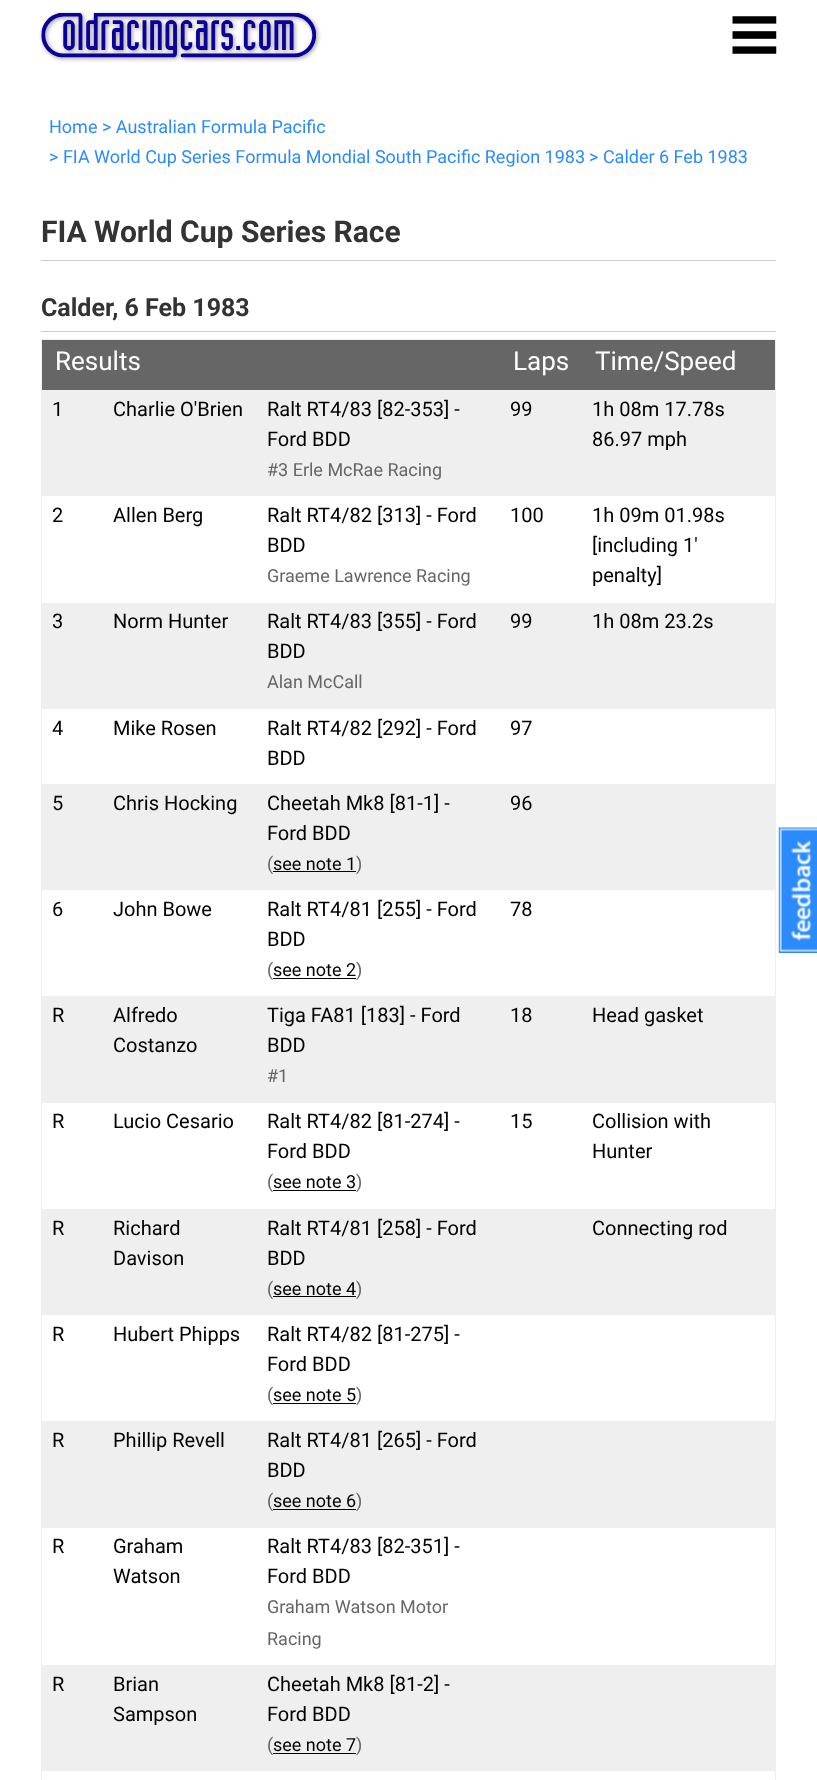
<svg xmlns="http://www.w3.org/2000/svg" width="817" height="1780">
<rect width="100%" height="100%" fill="#fff"/>
<image x="39" y="10" width="282" height="52" href="media/1.png"/>
<image x="732" y="16" width="45" height="38" href="media/2.png"/>
<text x="49" y="133" style="font-family:Roboto;font-size:18px;fill:#2c8bfc">Home &gt; Australian Formula Pacific</text>
<text x="49" y="163" style="font-family:Roboto;font-size:18px;fill:#2c8bfc">&gt; FIA World Cup Series Formula Mondial South Pacific Region 1983</text>
<text x="589" y="163" style="font-family:Roboto;font-size:18px;fill:#2c8bfc">&gt; Calder 6 Feb 1983</text>
<rect x="41" y="260" width="735" height="1" fill="#ccc"/>
<text x="41" y="242" style="font-family:Roboto;font-size:30px;font-weight:bold;fill:#333">FIA World Cup Series Race</text>
<rect x="41" y="331" width="735" height="1" fill="#ccc"/>
<text x="41" y="316" style="font-family:Roboto;font-size:25px;font-weight:bold;fill:#333">Calder, 6 Feb 1983</text>
<rect x="41" y="339" width="735" height="1" fill="#efefef"/>
<rect x="775" y="339" width="1" height="1441" fill="#efefef"/>
<rect x="41" y="339" width="1" height="1441" fill="#efefef"/>
<rect x="42" y="340" width="733" height="50" fill="#666"/>
<text x="55" y="370" style="font-family:Roboto;font-size:26px;fill:#fff">Results</text>
<text x="513" y="370" style="font-family:Roboto;font-size:26px;fill:#fff">Laps</text>
<text x="595" y="370" style="font-family:Roboto;font-size:26px;fill:#fff">Time/Speed</text>
<rect x="42" y="390" width="733" height="106" fill="#efefef"/>
<text x="52" y="416" style="font-family:Roboto;font-size:20px;fill:#000">1</text>
<text x="113" y="416" style="font-family:Roboto;font-size:20px;fill:#000">Charlie O'Brien</text>
<text x="267" y="416" style="font-family:Roboto;font-size:20px;fill:#000">Ralt RT4/83 [82-353] -</text>
<text x="267" y="446" style="font-family:Roboto;font-size:20px;fill:#000">Ford BDD</text>
<text x="267" y="476" style="font-family:Roboto;font-size:18px;fill:#666">#3 Erle McRae Racing</text>
<text x="510" y="416" style="font-family:Roboto;font-size:20px;fill:#000">99</text>
<text x="592" y="416" style="font-family:Roboto;font-size:20px;fill:#000">1h 08m 17.78s</text>
<text x="592" y="446" style="font-family:Roboto;font-size:20px;fill:#000">86.97 mph</text>
<text x="52" y="522" style="font-family:Roboto;font-size:20px;fill:#000">2</text>
<text x="113" y="522" style="font-family:Roboto;font-size:20px;fill:#000">Allen Berg</text>
<text x="267" y="522" style="font-family:Roboto;font-size:20px;fill:#000">Ralt RT4/82 [313] - Ford</text>
<text x="267" y="552" style="font-family:Roboto;font-size:20px;fill:#000">BDD</text>
<text x="267" y="582" style="font-family:Roboto;font-size:18px;fill:#666">Graeme Lawrence Racing</text>
<text x="510" y="522" style="font-family:Roboto;font-size:20px;fill:#000">100</text>
<text x="592" y="522" style="font-family:Roboto;font-size:20px;fill:#000">1h 09m 01.98s</text>
<text x="592" y="552" style="font-family:Roboto;font-size:20px;fill:#000">[including 1'</text>
<text x="592" y="582" style="font-family:Roboto;font-size:20px;fill:#000">penalty]</text>
<rect x="42" y="603" width="733" height="106" fill="#efefef"/>
<text x="52" y="628" style="font-family:Roboto;font-size:20px;fill:#000">3</text>
<text x="113" y="628" style="font-family:Roboto;font-size:20px;fill:#000">Norm Hunter</text>
<text x="267" y="628" style="font-family:Roboto;font-size:20px;fill:#000">Ralt RT4/83 [355] - Ford</text>
<text x="267" y="658" style="font-family:Roboto;font-size:20px;fill:#000">BDD</text>
<text x="267" y="688" style="font-family:Roboto;font-size:18px;fill:#666">Alan McCall</text>
<text x="510" y="628" style="font-family:Roboto;font-size:20px;fill:#000">99</text>
<text x="592" y="628" style="font-family:Roboto;font-size:20px;fill:#000">1h 08m 23.2s</text>
<text x="52" y="735" style="font-family:Roboto;font-size:20px;fill:#000">4</text>
<text x="113" y="735" style="font-family:Roboto;font-size:20px;fill:#000">Mike Rosen</text>
<text x="267" y="735" style="font-family:Roboto;font-size:20px;fill:#000">Ralt RT4/82 [292] - Ford</text>
<text x="267" y="765" style="font-family:Roboto;font-size:20px;fill:#000">BDD</text>
<text x="510" y="735" style="font-family:Roboto;font-size:20px;fill:#000">97</text>
<rect x="42" y="784" width="733" height="106" fill="#efefef"/>
<text x="52" y="810" style="font-family:Roboto;font-size:20px;fill:#000">5</text>
<text x="113" y="810" style="font-family:Roboto;font-size:20px;fill:#000">Chris Hocking</text>
<text x="267" y="810" style="font-family:Roboto;font-size:20px;fill:#000">Cheetah Mk8 [81-1] -</text>
<text x="267" y="840" style="font-family:Roboto;font-size:20px;fill:#000">Ford BDD</text>
<text x="267" y="870" style="font-family:Roboto;font-size:18px;fill:#666">(</text>
<rect x="273" y="871" width="83" height="1" fill="#000"/>
<text x="273" y="870" style="font-family:Roboto;font-size:18px;fill:#000">see note 1</text>
<text x="356" y="870" style="font-family:Roboto;font-size:18px;fill:#666">)</text>
<text x="510" y="810" style="font-family:Roboto;font-size:20px;fill:#000">96</text>
<text x="52" y="916" style="font-family:Roboto;font-size:20px;fill:#000">6</text>
<text x="113" y="916" style="font-family:Roboto;font-size:20px;fill:#000">John Bowe</text>
<text x="267" y="916" style="font-family:Roboto;font-size:20px;fill:#000">Ralt RT4/81 [255] - Ford</text>
<text x="267" y="946" style="font-family:Roboto;font-size:20px;fill:#000">BDD</text>
<text x="267" y="976" style="font-family:Roboto;font-size:18px;fill:#666">(</text>
<rect x="273" y="978" width="83" height="1" fill="#000"/>
<text x="273" y="976" style="font-family:Roboto;font-size:18px;fill:#000">see note 2</text>
<text x="356" y="976" style="font-family:Roboto;font-size:18px;fill:#666">)</text>
<text x="510" y="916" style="font-family:Roboto;font-size:20px;fill:#000">78</text>
<rect x="42" y="996" width="733" height="107" fill="#efefef"/>
<text x="52" y="1022" style="font-family:Roboto;font-size:20px;fill:#000">R</text>
<text x="113" y="1022" style="font-family:Roboto;font-size:20px;fill:#000">Alfredo</text>
<text x="113" y="1052" style="font-family:Roboto;font-size:20px;fill:#000">Costanzo</text>
<text x="267" y="1022" style="font-family:Roboto;font-size:20px;fill:#000">Tiga FA81 [183] - Ford</text>
<text x="267" y="1052" style="font-family:Roboto;font-size:20px;fill:#000">BDD</text>
<text x="267" y="1082" style="font-family:Roboto;font-size:18px;fill:#666">#1</text>
<text x="510" y="1022" style="font-family:Roboto;font-size:20px;fill:#000">18</text>
<text x="592" y="1022" style="font-family:Roboto;font-size:20px;fill:#000">Head gasket</text>
<text x="52" y="1128" style="font-family:Roboto;font-size:20px;fill:#000">R</text>
<text x="113" y="1128" style="font-family:Roboto;font-size:20px;fill:#000">Lucio Cesario</text>
<text x="267" y="1128" style="font-family:Roboto;font-size:20px;fill:#000">Ralt RT4/82 [81-274] -</text>
<text x="267" y="1158" style="font-family:Roboto;font-size:20px;fill:#000">Ford BDD</text>
<text x="267" y="1188" style="font-family:Roboto;font-size:18px;fill:#666">(</text>
<rect x="273" y="1190" width="83" height="1" fill="#000"/>
<text x="273" y="1188" style="font-family:Roboto;font-size:18px;fill:#000">see note 3</text>
<text x="356" y="1188" style="font-family:Roboto;font-size:18px;fill:#666">)</text>
<text x="510" y="1128" style="font-family:Roboto;font-size:20px;fill:#000">15</text>
<text x="592" y="1128" style="font-family:Roboto;font-size:20px;fill:#000">Collision with</text>
<text x="592" y="1158" style="font-family:Roboto;font-size:20px;fill:#000">Hunter</text>
<rect x="42" y="1209" width="733" height="106" fill="#efefef"/>
<text x="52" y="1235" style="font-family:Roboto;font-size:20px;fill:#000">R</text>
<text x="113" y="1235" style="font-family:Roboto;font-size:20px;fill:#000">Richard</text>
<text x="113" y="1265" style="font-family:Roboto;font-size:20px;fill:#000">Davison</text>
<text x="267" y="1235" style="font-family:Roboto;font-size:20px;fill:#000">Ralt RT4/81 [258] - Ford</text>
<text x="267" y="1265" style="font-family:Roboto;font-size:20px;fill:#000">BDD</text>
<text x="267" y="1295" style="font-family:Roboto;font-size:18px;fill:#666">(</text>
<rect x="273" y="1296" width="83" height="1" fill="#000"/>
<text x="273" y="1295" style="font-family:Roboto;font-size:18px;fill:#000">see note 4</text>
<text x="356" y="1295" style="font-family:Roboto;font-size:18px;fill:#666">)</text>
<text x="592" y="1235" style="font-family:Roboto;font-size:20px;fill:#000">Connecting rod</text>
<text x="52" y="1341" style="font-family:Roboto;font-size:20px;fill:#000">R</text>
<text x="113" y="1341" style="font-family:Roboto;font-size:20px;fill:#000">Hubert Phipps</text>
<text x="267" y="1341" style="font-family:Roboto;font-size:20px;fill:#000">Ralt RT4/82 [81-275] -</text>
<text x="267" y="1371" style="font-family:Roboto;font-size:20px;fill:#000">Ford BDD</text>
<text x="267" y="1401" style="font-family:Roboto;font-size:18px;fill:#666">(</text>
<rect x="273" y="1403" width="83" height="1" fill="#000"/>
<text x="273" y="1401" style="font-family:Roboto;font-size:18px;fill:#000">see note 5</text>
<text x="356" y="1401" style="font-family:Roboto;font-size:18px;fill:#666">)</text>
<rect x="42" y="1421" width="733" height="107" fill="#efefef"/>
<text x="52" y="1447" style="font-family:Roboto;font-size:20px;fill:#000">R</text>
<text x="113" y="1447" style="font-family:Roboto;font-size:20px;fill:#000">Phillip Revell</text>
<text x="267" y="1447" style="font-family:Roboto;font-size:20px;fill:#000">Ralt RT4/81 [265] - Ford</text>
<text x="267" y="1477" style="font-family:Roboto;font-size:20px;fill:#000">BDD</text>
<text x="267" y="1507" style="font-family:Roboto;font-size:18px;fill:#666">(</text>
<rect x="273" y="1509" width="83" height="1" fill="#000"/>
<text x="273" y="1507" style="font-family:Roboto;font-size:18px;fill:#000">see note 6</text>
<text x="356" y="1507" style="font-family:Roboto;font-size:18px;fill:#666">)</text>
<text x="52" y="1553" style="font-family:Roboto;font-size:20px;fill:#000">R</text>
<text x="113" y="1553" style="font-family:Roboto;font-size:20px;fill:#000">Graham</text>
<text x="113" y="1583" style="font-family:Roboto;font-size:20px;fill:#000">Watson</text>
<text x="267" y="1553" style="font-family:Roboto;font-size:20px;fill:#000">Ralt RT4/83 [82-351] -</text>
<text x="267" y="1583" style="font-family:Roboto;font-size:20px;fill:#000">Ford BDD</text>
<text x="267" y="1613" style="font-family:Roboto;font-size:18px;fill:#666">Graham Watson Motor</text>
<text x="267" y="1645" style="font-family:Roboto;font-size:18px;fill:#666">Racing</text>
<rect x="42" y="1665" width="733" height="106" fill="#efefef"/>
<text x="52" y="1691" style="font-family:Roboto;font-size:20px;fill:#000">R</text>
<text x="113" y="1691" style="font-family:Roboto;font-size:20px;fill:#000">Brian</text>
<text x="113" y="1721" style="font-family:Roboto;font-size:20px;fill:#000">Sampson</text>
<text x="267" y="1691" style="font-family:Roboto;font-size:20px;fill:#000">Cheetah Mk8 [81-2] -</text>
<text x="267" y="1721" style="font-family:Roboto;font-size:20px;fill:#000">Ford BDD</text>
<text x="267" y="1751" style="font-family:Roboto;font-size:18px;fill:#666">(</text>
<rect x="273" y="1753" width="83" height="1" fill="#000"/>
<text x="273" y="1751" style="font-family:Roboto;font-size:18px;fill:#000">see note 7</text>
<text x="356" y="1751" style="font-family:Roboto;font-size:18px;fill:#666">)</text>
<rect x="779" y="952" width="38" height="1" fill="#2c8bfc"/>
<image x="778" y="827" width="39" height="126" href="media/3.png"/>
</svg>
